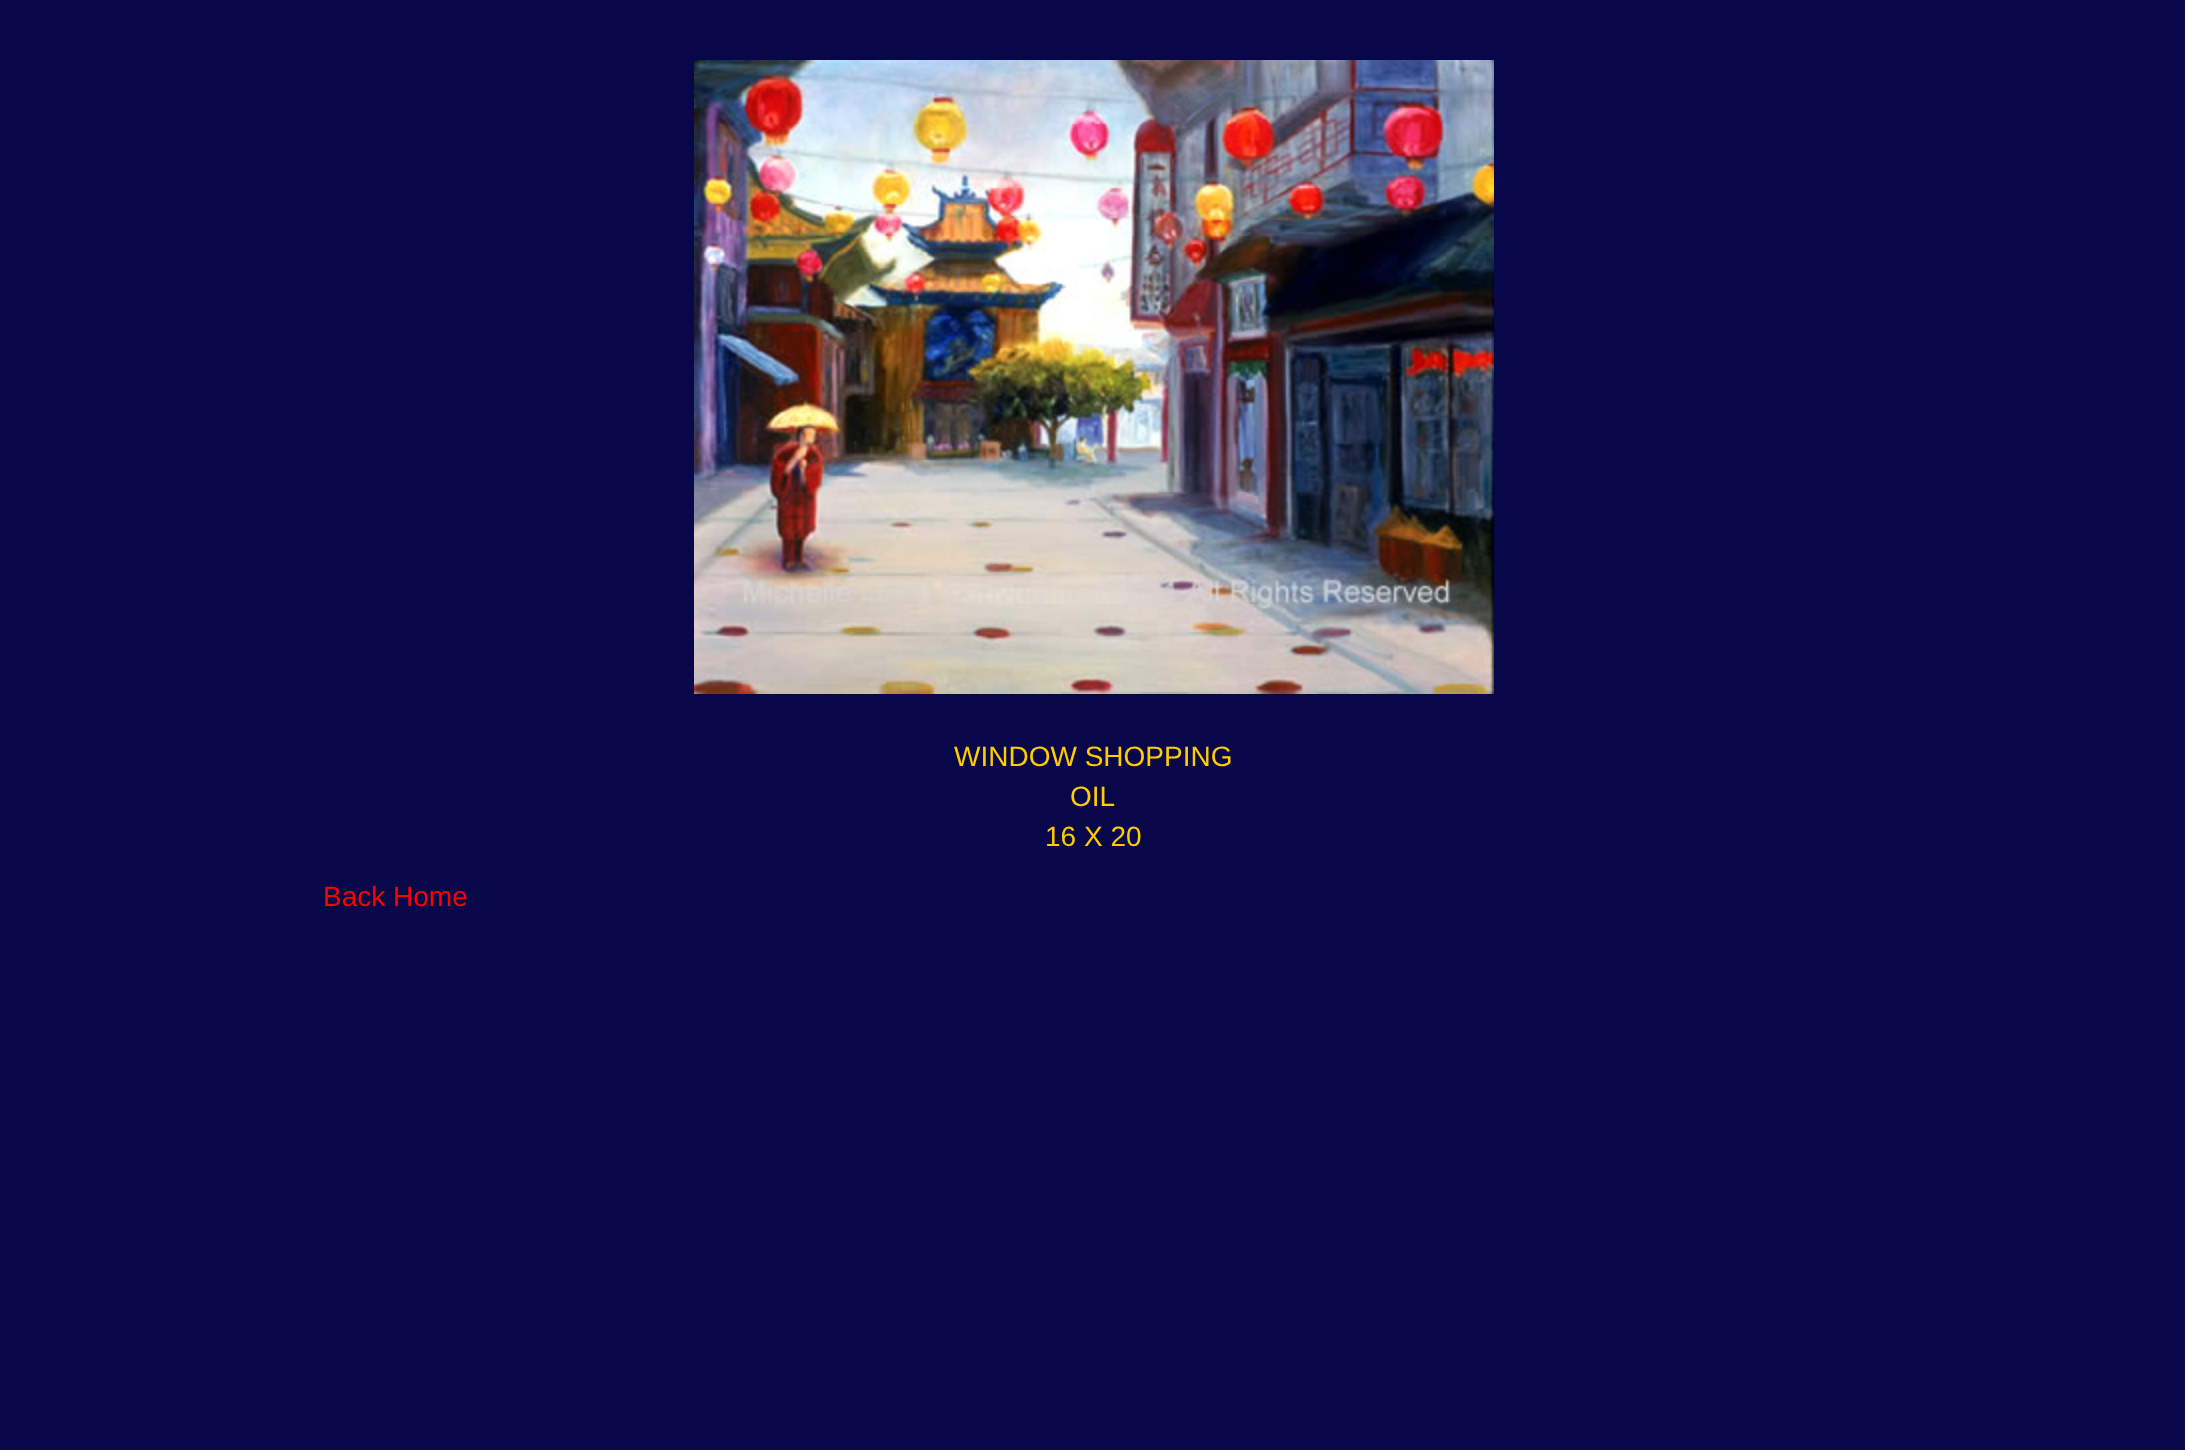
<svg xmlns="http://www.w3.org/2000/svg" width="2185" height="1450">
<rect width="100%" height="100%" fill="#070749"/>
<image x="694" y="60" width="800" height="634" href="media/1.png"/>
<text x="954" y="766" style="font-family:Liberation Sans;font-size:28px;fill:#fc0">WINDOW SHOPPING</text>
<text x="1070" y="806" style="font-family:Liberation Sans;font-size:28px;fill:#fc0">OIL</text>
<text x="1045" y="846" style="font-family:Liberation Sans;font-size:28px;fill:#fc0">16 X 20</text>
<text x="323" y="906" style="font-family:Liberation Sans;font-size:28px;fill:#f00">Back Home</text>
</svg>
